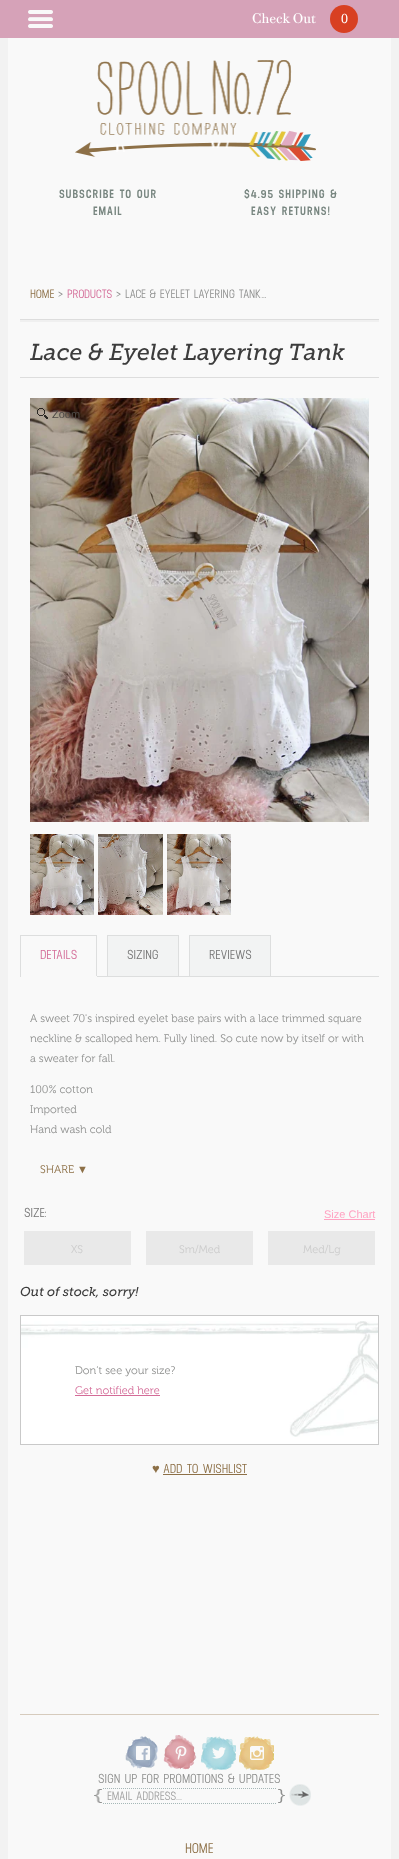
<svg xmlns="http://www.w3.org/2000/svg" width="399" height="1859">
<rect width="100%" height="100%" fill="#f2f2f2"/>
<rect x="8" y="38" width="383" height="1821" fill="#f9f9f9"/>
<rect width="399" height="38" fill="#d6a2b8"/>
<image x="28" y="10" width="25" height="18" href="media/1.png"/>
<text x="252" y="23" style="font-family:'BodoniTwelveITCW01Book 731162';font-size:14px;fill:#fff">Check Out</text>
<circle cx="344" cy="19" r="14" fill="#d84022"/>
<text x="341" y="23" style="font-family:Liberation Serif;font-size:14px;fill:#fff">0</text>
<image x="75" y="60" width="241" height="101" href="media/2.png"/>
<text x="59" y="198" style="font-family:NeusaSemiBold;font-size:12px;font-weight:600;letter-spacing:1px;fill:#788680">SUBSCRIBE TO OUR</text>
<text x="93" y="215" style="font-family:NeusaSemiBold;font-size:12px;font-weight:600;letter-spacing:1px;fill:#788680">EMAIL</text>
<text x="244" y="198" style="font-family:NeusaSemiBold;font-size:12px;font-weight:600;letter-spacing:1px;fill:#788680">$4.95 SHIPPING &amp;</text>
<text x="251" y="215" style="font-family:NeusaSemiBold;font-size:12px;font-weight:600;letter-spacing:1px;fill:#788680">EASY RETURNS!</text>
<rect x="20" y="319" width="359" height="1" fill="#ddd"/>
<text x="30" y="298" style="font-family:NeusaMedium;font-size:12px;font-weight:500;fill:#8d7047">HOME</text>
<text x="58" y="298" style="font-family:NeusaMedium;font-size:12px;font-weight:500;fill:#8f908f">&gt;</text>
<text x="67" y="298" style="font-family:NeusaMedium;font-size:12px;font-weight:500;fill:#d46c98">PRODUCTS</text>
<text x="116" y="298" style="font-family:NeusaMedium;font-size:12px;font-weight:500;fill:#8f908f">&gt; LACE &amp; EYELET LAYERING TANK…</text>
<rect x="20" y="320" width="359" height="2" fill="#f0f0f0"/>
<rect x="20" y="377" width="359" height="1" fill="#ddd"/>
<text x="30" y="360" style="font-family:'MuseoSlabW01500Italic';font-size:23px;fill:#3c3c3c">Lace &amp; Eyelet Layering Tank</text>
<image x="30" y="398" width="339" height="424" href="media/3.png"/>
<image x="37" y="408" width="11" height="11" href="media/4.png"/>
<text x="52" y="418" style="font-family:Liberation Sans;font-size:11px;fill:#4e4946">Zoom</text>
<image x="30" y="834" width="64" height="81" href="media/5.png"/>
<image x="98" y="834" width="65" height="81" href="media/6.png"/>
<image x="167" y="834" width="64" height="81" href="media/7.png"/>
<rect x="97" y="976" width="282" height="1" fill="#dddede"/>
<rect x="20" y="935" width="77" height="1" fill="#dddede"/>
<rect x="96" y="935" width="1" height="42" fill="#dddede"/>
<rect x="96" y="976" width="1" height="1" fill="#f9f9f9"/>
<rect x="20" y="935" width="1" height="42" fill="#dddede"/>
<text x="40" y="959" style="font-family:NeusaMedium;font-size:13px;font-weight:500;fill:#d46c98">DETAILS</text>
<rect x="108" y="936" width="70" height="40" fill="#f2f3f3"/>
<rect x="107" y="935" width="72" height="1" fill="#dddede"/>
<rect x="178" y="935" width="1" height="41" fill="#dddede"/>
<rect x="107" y="935" width="1" height="41" fill="#dddede"/>
<text x="127" y="959" style="font-family:NeusaMedium;font-size:13px;font-weight:500;fill:#767676">SIZING</text>
<rect x="190" y="936" width="80" height="40" fill="#f2f3f3"/>
<rect x="189" y="935" width="82" height="1" fill="#dddede"/>
<rect x="270" y="935" width="1" height="41" fill="#dddede"/>
<rect x="189" y="935" width="1" height="41" fill="#dddede"/>
<text x="209" y="959" style="font-family:NeusaMedium;font-size:13px;font-weight:500;fill:#767676">REVIEWS</text>
<text x="30" y="1022" style="font-family:'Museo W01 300';font-size:11px;font-weight:300;fill:#8f908f">A sweet 70's inspired eyelet base pairs with a lace trimmed square</text>
<text x="30" y="1042" style="font-family:'Museo W01 300';font-size:11px;font-weight:300;fill:#8f908f">neckline &amp; scalloped hem. Fully lined. So cute now by itself or with</text>
<text x="30" y="1062" style="font-family:'Museo W01 300';font-size:11px;font-weight:300;fill:#8f908f">a sweater for fall.</text>
<text x="30" y="1093" style="font-family:'Museo W01 300';font-size:11px;font-weight:300;fill:#8f908f">100% cotton</text>
<text x="30" y="1113" style="font-family:'Museo W01 300';font-size:11px;font-weight:300;fill:#8f908f">Imported</text>
<text x="30" y="1133" style="font-family:'Museo W01 300';font-size:11px;font-weight:300;fill:#8f908f">Hand wash cold</text>
<text x="40" y="1173" style="font-family:'Museo W01 300';font-size:11px;font-weight:300;fill:#8d7047">SHARE</text>
<text x="77" y="1173" style="font-family:Liberation Sans;font-size:11px;fill:#8d7047">▼</text>
<text x="24" y="1217" style="font-family:NeusaMedium;font-size:13px;font-weight:500;fill:#767676">SIZE:</text>
<text x="324" y="1218" style="font-family:Liberation Sans;font-size:11px;fill:#ffa3c2">Size Chart</text>
<rect x="324" y="1219" width="51" height="1" fill="#ffa3c2"/>
<rect x="24" y="1231" width="107" height="34" fill="#e9e9e9"/>
<text x="71" y="1253" style="font-family:'Museo W01 300';font-size:11px;font-weight:300;fill:#ccc">XS</text>
<rect x="146" y="1231" width="107" height="34" fill="#e9e9e9"/>
<text x="179" y="1253" style="font-family:'Museo W01 300';font-size:11px;font-weight:300;fill:#ccc">Sm/Med</text>
<rect x="268" y="1231" width="107" height="34" fill="#e9e9e9"/>
<text x="303" y="1253" style="font-family:'Museo W01 300';font-size:11px;font-weight:300;fill:#ccc">Med/Lg</text>
<text x="20" y="1296" style="font-family:'MuseoSlabW01500Italic';font-size:12.9px;fill:#3c3c3c">Out of stock, sorry!</text>
<rect x="21" y="1316" width="357" height="128" fill="#fff"/>
<image x="21" y="1321" width="357" height="116" href="media/8.png"/>
<rect x="20.5" y="1315.5" width="358" height="129" fill="none" stroke="#c9c9c9"/>
<text x="75" y="1374" style="font-family:'Museo W01 300';font-size:11px;font-weight:300;fill:#8f908f">Don’t see your size?</text>
<text x="75" y="1394" style="font-family:'Museo W01 300';font-size:11px;font-weight:300;fill:#d46c98">Get notified here</text>
<rect x="75" y="1395" width="85" height="1" fill="#d46c98"/>
<text x="152" y="1473" style="font-family:Liberation Serif;font-size:13px;fill:#8d7047">♥</text>
<text x="163" y="1473" style="font-family:NeusaMedium;font-size:13px;font-weight:500;fill:#8d7047">ADD TO WISHLIST</text>
<rect x="163" y="1474" width="84" height="1" fill="#8d7047"/>
<rect x="20" y="1714" width="359" height="1" fill="#d6cbbd"/>
<image x="125" y="1736" width="33" height="33" href="media/9.png"/>
<image x="136" y="1746" width="14" height="14" href="media/10.png"/>
<image x="163" y="1735" width="34" height="35" href="media/11.png"/>
<image x="175" y="1746" width="12" height="14" href="media/12.png"/>
<image x="201" y="1736" width="35" height="34" href="media/13.png"/>
<image x="212" y="1747" width="14" height="12" href="media/14.png"/>
<image x="239" y="1736" width="35" height="34" href="media/15.png"/>
<image x="250" y="1746" width="14" height="14" href="media/16.png"/>
<text x="98" y="1783" style="font-family:NeusaMedium;font-size:13px;font-weight:500;fill:#8f908f">SIGN UP FOR PROMOTIONS &amp; UPDATES</text>
<image x="94" y="1789" width="8" height="14" href="media/17.png"/>
<path d="M103 1788.5h173" fill="none" stroke="#a5b7b7" stroke-dasharray="1 1"/>
<path d="M103 1803.5h173" fill="none" stroke="#a5b7b7" stroke-dasharray="1 1"/>
<text x="107" y="1800" style="font-family:NeusaMedium;font-size:12px;font-weight:500;fill:#a2a2a2">EMAIL ADDRESS...</text>
<image x="278" y="1784" width="33" height="22" href="media/18.png"/>
<text x="185" y="1853" style="font-family:NeusaMedium;font-size:14px;font-weight:500;fill:#8d7047">HOME</text>
</svg>
